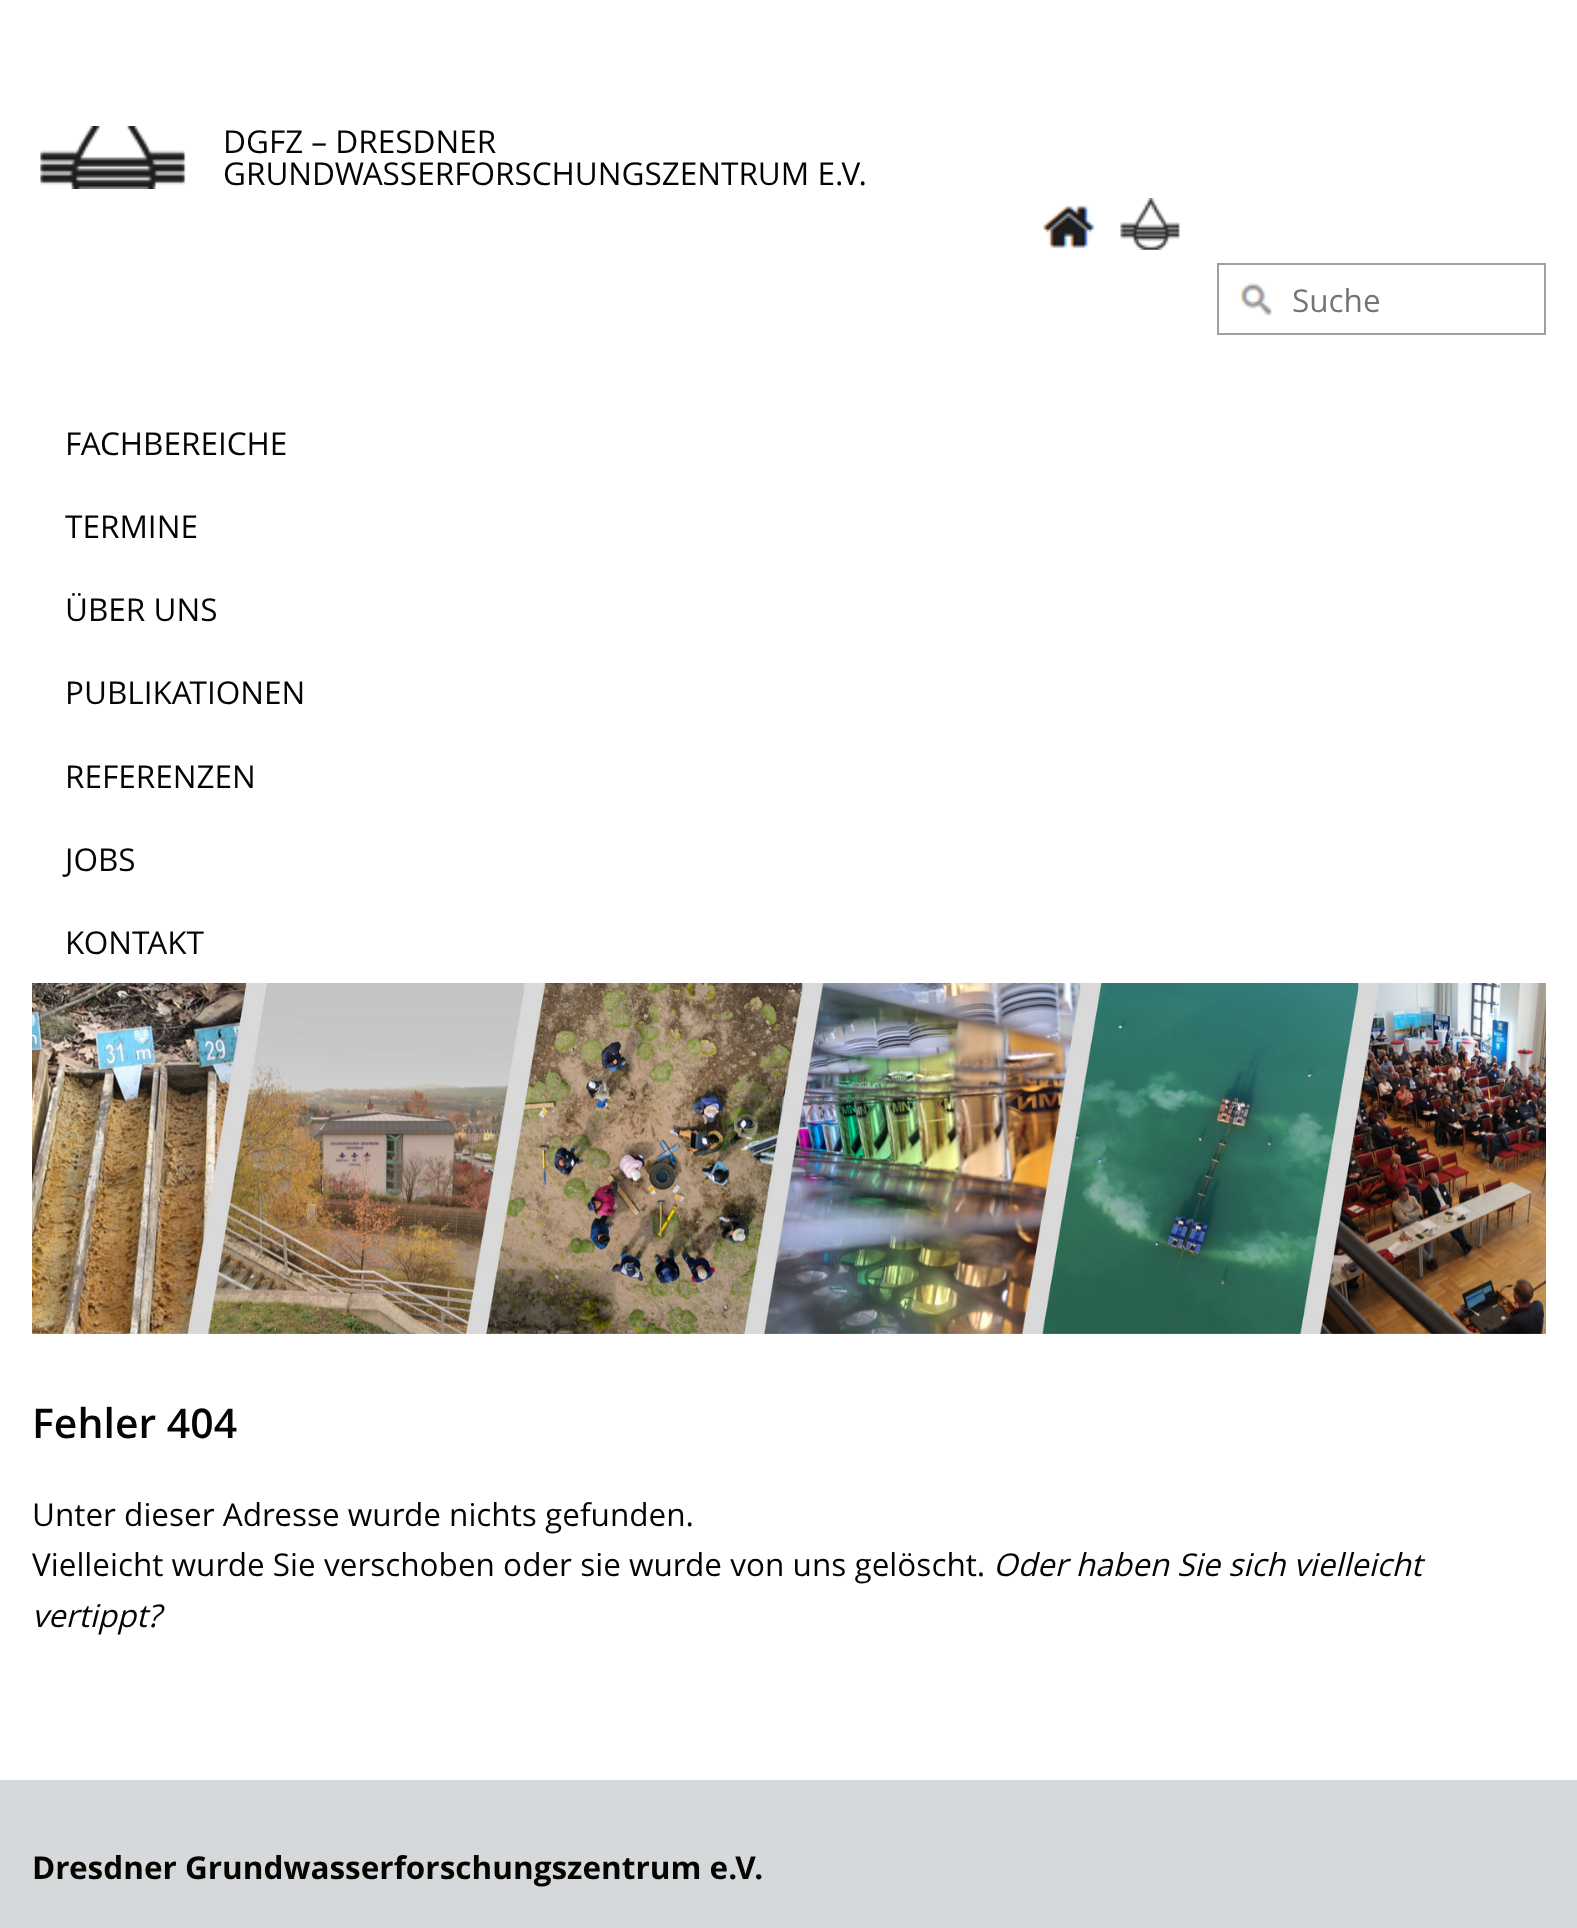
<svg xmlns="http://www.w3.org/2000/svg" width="1577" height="1928">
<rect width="100%" height="100%" fill="#d6d9db"/>
<rect width="1577" height="1780" fill="#fff"/>
<image x="40" y="126" width="146" height="63" href="media/1.png"/>
<text x="223" y="153" style="font-family:Open Sans;font-size:31.5px;fill:#060400">DGFZ – DRESDNER</text>
<text x="223" y="185" style="font-family:Open Sans;font-size:31.5px;fill:#060400">GRUNDWASSERFORSCHUNGSZENTRUM E.V.</text>
<image x="1043" y="204" width="52" height="45" href="media/2.png"/>
<image x="1120" y="198" width="60" height="52" href="media/3.png"/>
<rect x="1218" y="264" width="327" height="70" fill="none" stroke="#9f9f9f" stroke-width="2"/>
<image x="1239" y="283" width="33" height="32" href="media/4.png"/>
<text x="1292" y="312" style="font-family:Open Sans;font-size:31.5px;fill:#757575">Suche</text>
<text x="65" y="455" style="font-family:Open Sans;font-size:31.5px;fill:#060400">FACHBEREICHE</text>
<text x="65" y="538" style="font-family:Open Sans;font-size:31.5px;fill:#060400">TERMINE</text>
<text x="65" y="621" style="font-family:Open Sans;font-size:31.5px;fill:#060400">ÜBER UNS</text>
<text x="65" y="704" style="font-family:Open Sans;font-size:31.5px;fill:#060400">PUBLIKATIONEN</text>
<text x="65" y="788" style="font-family:Open Sans;font-size:31.5px;fill:#060400">REFERENZEN</text>
<text x="65" y="871" style="font-family:Open Sans;font-size:31.5px;fill:#060400">JOBS</text>
<text x="65" y="954" style="font-family:Open Sans;font-size:31.5px;fill:#060400">KONTAKT</text>
<image x="32" y="983" width="1514" height="351" href="media/5.png"/>
<text x="32" y="1438" style="font-family:Open Sans;font-size:41px;font-weight:600;fill:#060400">Fehler 404</text>
<text x="32" y="1526" style="font-family:Open Sans;font-size:31.5px;fill:#060400">Unter dieser Adresse wurde nichts gefunden.</text>
<text x="32" y="1576" style="font-family:Open Sans;font-size:31.5px;fill:#060400">Vielleicht wurde Sie verschoben oder sie wurde von uns gelöscht.</text>
<text x="993" y="1576" style="font-family:Open Sans;font-size:31.5px;font-style:italic;fill:#060400">Oder haben Sie sich vielleicht</text>
<text x="32" y="1627" style="font-family:Open Sans;font-size:31.5px;font-style:italic;fill:#060400">vertippt?</text>
<text x="32" y="1879" style="font-family:Open Sans;font-size:31.5px;font-weight:bold;fill:#060400">Dresdner Grundwasserforschungszentrum e.V.</text>
</svg>
